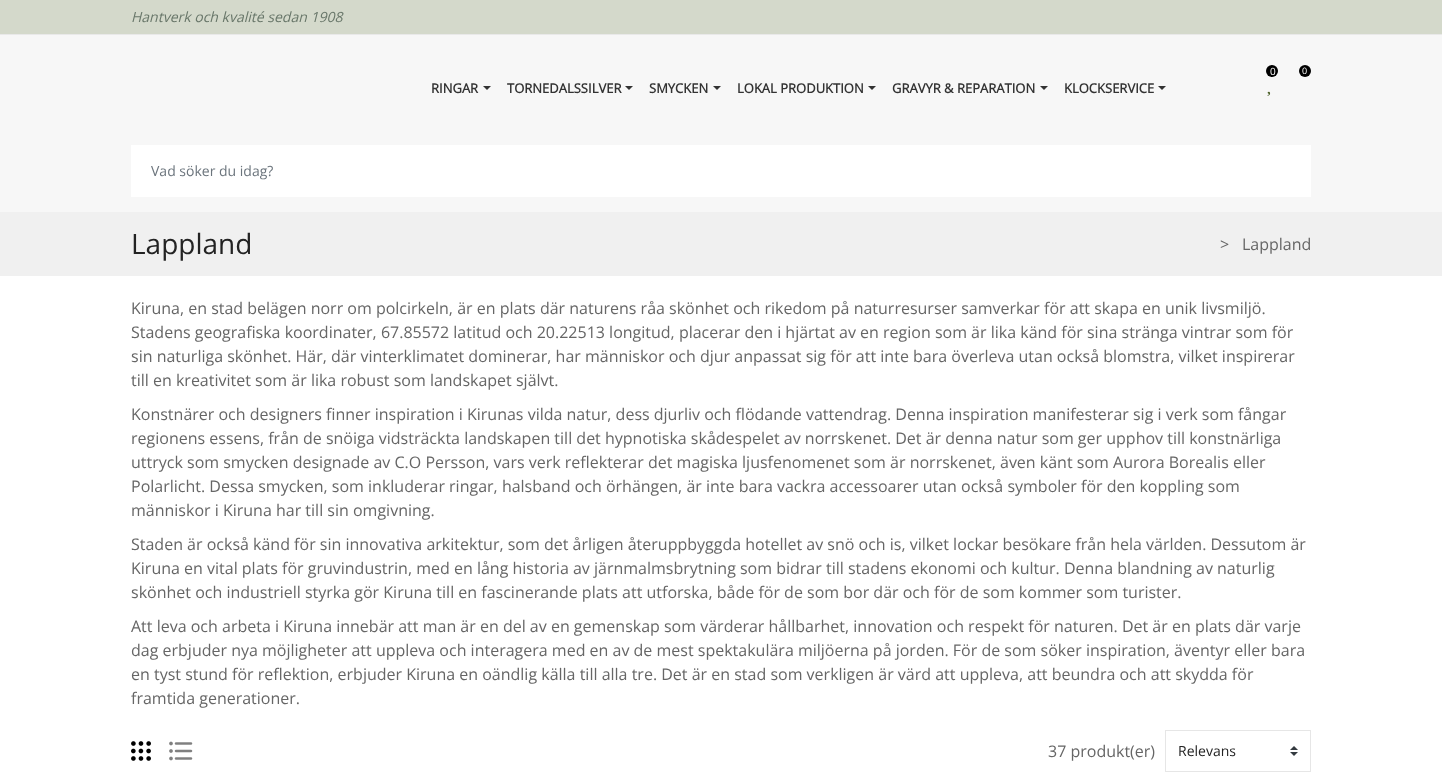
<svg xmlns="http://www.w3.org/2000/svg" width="1442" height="774">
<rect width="100%" height="100%" fill="#fff"/>
<rect width="1442" height="34" fill="#d4d9cb"/>
<rect y="34" width="1442" height="1" fill="#e9e9e9"/>
<text x="131" y="22" style="font-family:Open Sans;font-size:14px;font-style:italic;fill:#69776a">Hantverk och kvalité sedan 1908</text>
<rect y="35" width="1442" height="177" fill="#f7f7f7"/>
<circle cx="1272" cy="71" r="6" fill="#000"/>
<text x="1270" y="75" style="font-family:Open Sans;font-size:10px;fill:#fff">0</text>
<image x="1267" y="91" width="4" height="5" href="media/1.png"/>
<circle cx="1305" cy="71" r="6" fill="#000"/>
<text x="1302" y="74" style="font-family:Open Sans;font-size:9px;fill:#fff">0</text>
<text x="431" y="93" style="font-family:Open Sans;font-size:13px;font-weight:bold;fill:#333">RINGAR</text>
<path d="M483 86h8l-4 4z" fill="#333"/>
<text x="507" y="93" style="font-family:Open Sans;font-size:13px;font-weight:bold;fill:#333">TORNEDALSSILVER</text>
<path d="M625 86h8l-4 4z" fill="#333"/>
<text x="649" y="93" style="font-family:Open Sans;font-size:13px;font-weight:bold;fill:#333">SMYCKEN</text>
<path d="M713 86h8l-4 4z" fill="#333"/>
<text x="737" y="93" style="font-family:Open Sans;font-size:13px;font-weight:bold;fill:#333">LOKAL PRODUKTION</text>
<path d="M868 86h8l-4 4z" fill="#333"/>
<text x="892" y="93" style="font-family:Open Sans;font-size:13px;font-weight:bold;fill:#333">GRAVYR &amp; REPARATION</text>
<path d="M1040 86h8l-4 4z" fill="#333"/>
<text x="1064" y="93" style="font-family:Open Sans;font-size:13px;font-weight:bold;fill:#333">KLOCKSERVICE</text>
<path d="M1158 86h8l-4 4z" fill="#333"/>
<rect x="131" y="145" width="1180" height="52" fill="#fff"/>
<text x="151" y="176" style="font-family:Open Sans;font-size:14px;fill:#6c757d">Vad söker du idag?</text>
<rect y="212" width="1442" height="64" fill="#f0f0f0"/>
<text x="131" y="254" style="font-family:Open Sans;font-size:28px;fill:#232323">Lappland</text>
<text x="1220" y="250" style="font-family:Open Sans;font-size:16px;fill:#666">&gt;</text>
<text x="1242" y="250" style="font-family:Open Sans;font-size:16px;fill:#666">Lappland</text>
<text x="131" y="314" style="font-family:Open Sans;font-size:16px;fill:#666">Kiruna, en stad belägen norr om polcirkeln, är en plats där naturens råa skönhet och rikedom på naturresurser samverkar för att skapa en unik livsmiljö.</text>
<text x="131" y="338" style="font-family:Open Sans;font-size:16px;fill:#666">Stadens geografiska koordinater, 67.85572 latitud och 20.22513 longitud, placerar den i hjärtat av en region som är lika känd för sina stränga vintrar som för</text>
<text x="131" y="362" style="font-family:Open Sans;font-size:16px;fill:#666">sin naturliga skönhet. Här, där vinterklimatet dominerar, har människor och djur anpassat sig för att inte bara överleva utan också blomstra, vilket inspirerar</text>
<text x="131" y="386" style="font-family:Open Sans;font-size:16px;fill:#666">till en kreativitet som är lika robust som landskapet självt.</text>
<text x="131" y="420" style="font-family:Open Sans;font-size:16px;fill:#666">Konstnärer och designers finner inspiration i Kirunas vilda natur, dess djurliv och flödande vattendrag. Denna inspiration manifesterar sig i verk som fångar</text>
<text x="131" y="444" style="font-family:Open Sans;font-size:16px;fill:#666">regionens essens, från de snöiga vidsträckta landskapen till det hypnotiska skådespelet av norrskenet. Det är denna natur som ger upphov till konstnärliga</text>
<text x="131" y="468" style="font-family:Open Sans;font-size:16px;fill:#666">uttryck som smycken designade av C.O Persson, vars verk reflekterar det magiska ljusfenomenet som är norrskenet, även känt som Aurora Borealis eller</text>
<text x="131" y="492" style="font-family:Open Sans;font-size:16px;fill:#666">Polarlicht. Dessa smycken, som inkluderar ringar, halsband och örhängen, är inte bara vackra accessoarer utan också symboler för den koppling som</text>
<text x="131" y="516" style="font-family:Open Sans;font-size:16px;fill:#666">människor i Kiruna har till sin omgivning.</text>
<text x="131" y="550" style="font-family:Open Sans;font-size:16px;fill:#666">Staden är också känd för sin innovativa arkitektur, som det årligen återuppbyggda hotellet av snö och is, vilket lockar besökare från hela världen. Dessutom är</text>
<text x="131" y="574" style="font-family:Open Sans;font-size:16px;fill:#666">Kiruna en vital plats för gruvindustrin, med en lång historia av järnmalmsbrytning som bidrar till stadens ekonomi och kultur. Denna blandning av naturlig</text>
<text x="131" y="598" style="font-family:Open Sans;font-size:16px;fill:#666">skönhet och industriell styrka gör Kiruna till en fascinerande plats att utforska, både för de som bor där och för de som kommer som turister.</text>
<text x="131" y="632" style="font-family:Open Sans;font-size:16px;fill:#666">Att leva och arbeta i Kiruna innebär att man är en del av en gemenskap som värderar hållbarhet, innovation och respekt för naturen. Det är en plats där varje</text>
<text x="131" y="656" style="font-family:Open Sans;font-size:16px;fill:#666">dag erbjuder nya möjligheter att uppleva och interagera med en av de mest spektakulära miljöerna på jorden. För de som söker inspiration, äventyr eller bara</text>
<text x="131" y="680" style="font-family:Open Sans;font-size:16px;fill:#666">en tyst stund för reflektion, erbjuder Kiruna en oändlig källa till alla tre. Det är en stad som verkligen är värd att uppleva, att beundra och att skydda för</text>
<text x="131" y="704" style="font-family:Open Sans;font-size:16px;fill:#666">framtida generationer.</text>
<image x="131" y="741" width="20" height="20" href="media/2.png"/>
<image x="169" y="741" width="24" height="20" href="media/3.png"/>
<text x="1048" y="757" style="font-family:Open Sans;font-size:16px;fill:#666">37 produkt(er)</text>
<image x="1290" y="746" width="8" height="10" href="media/4.png"/>
<rect x="1165.5" y="730.5" width="145" height="41" fill="none" stroke="#e6e6e6"/>
<text x="1178" y="756" style="font-family:Open Sans;font-size:14px;fill:#232323">Relevans</text>
</svg>
